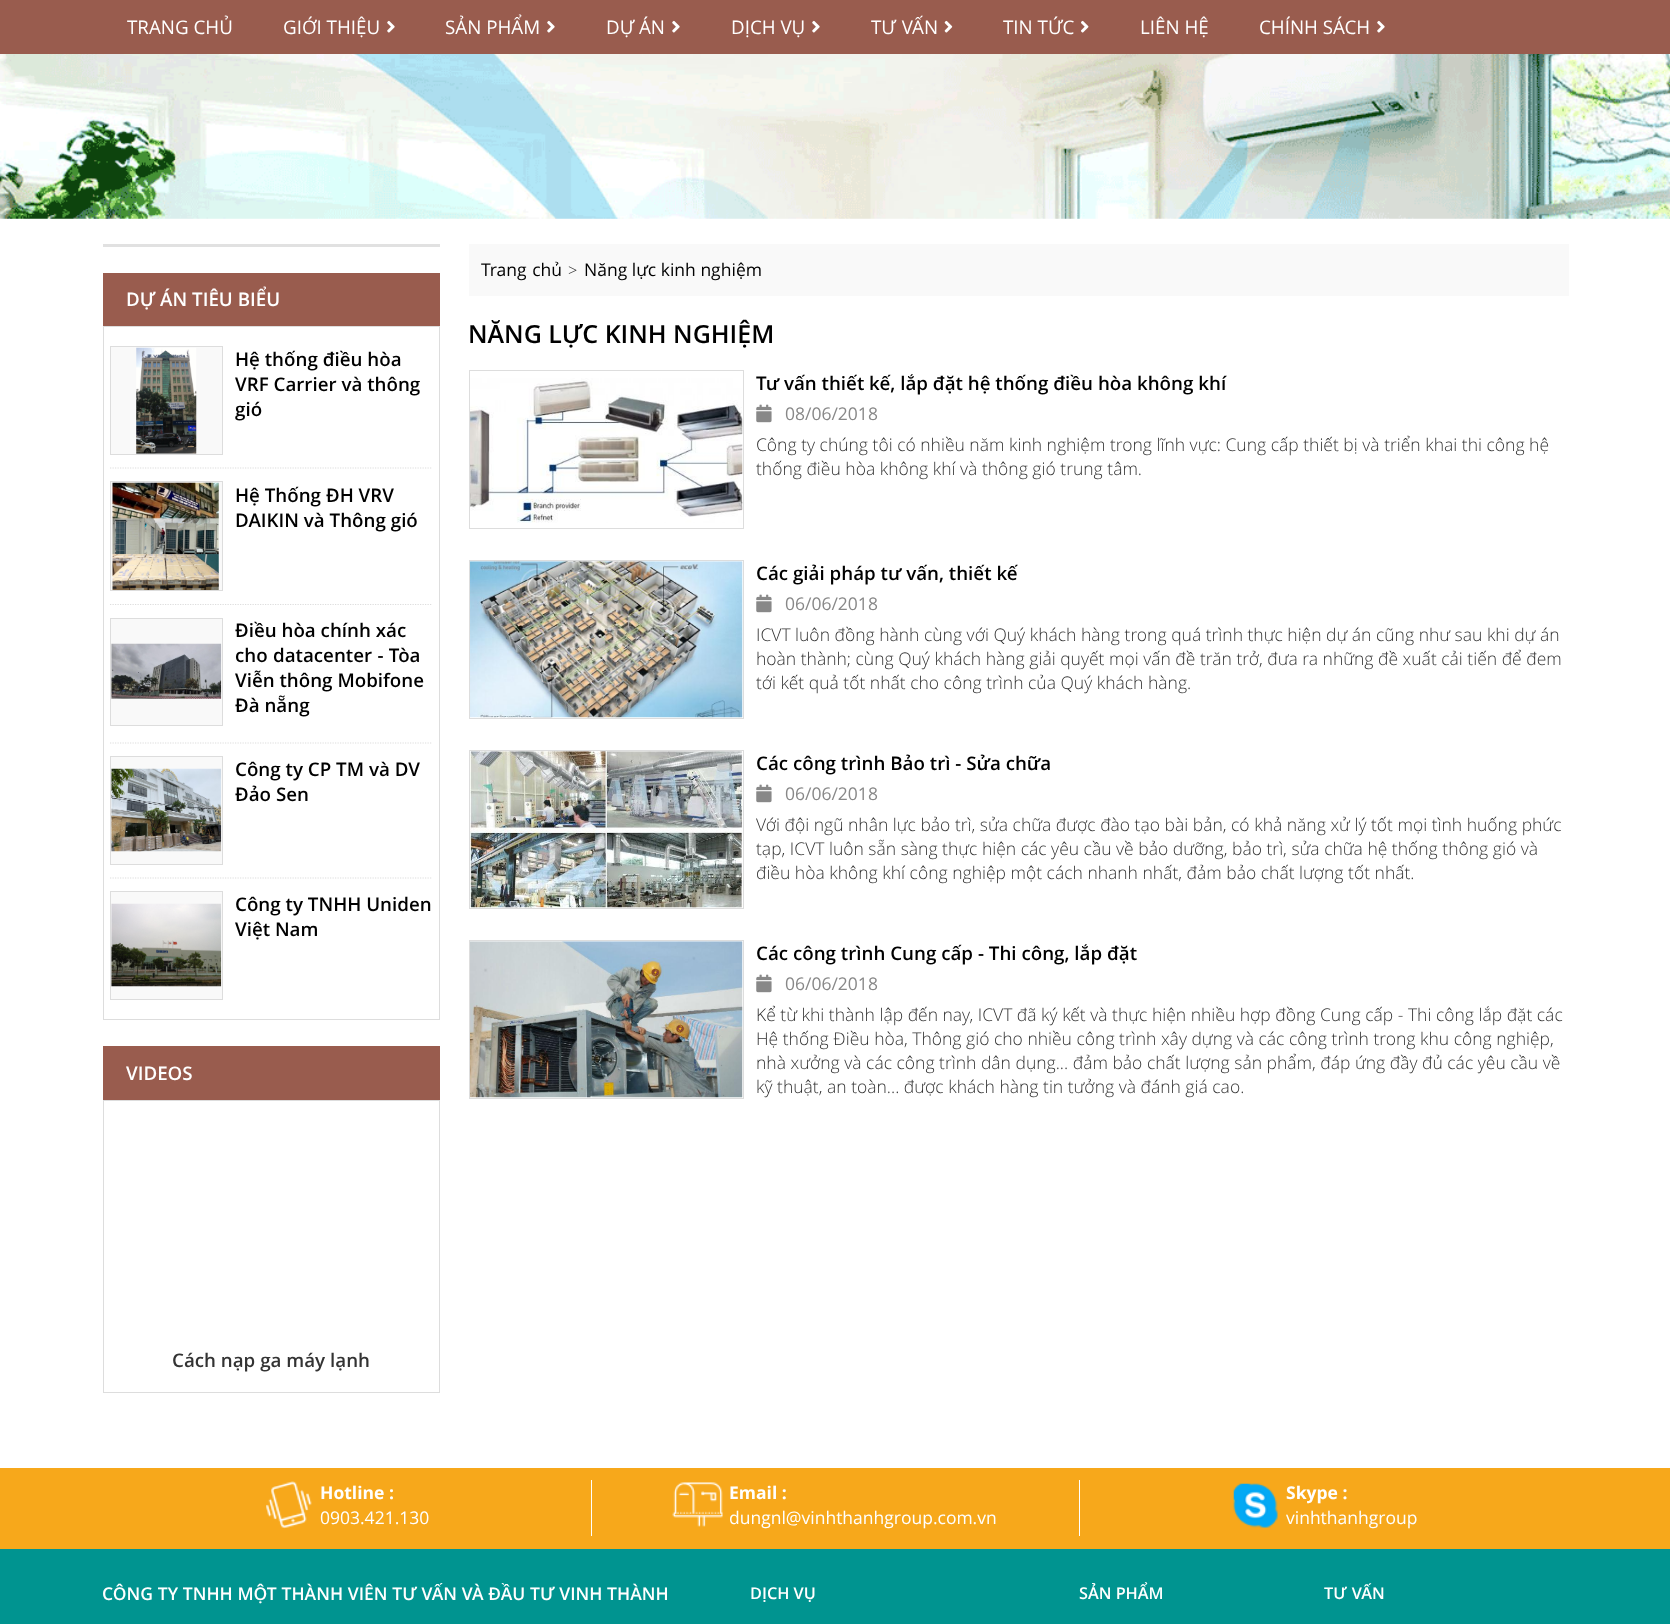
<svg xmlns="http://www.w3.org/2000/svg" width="1670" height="1624">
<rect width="100%" height="100%" fill="#fff"/>
<rect width="1670" height="54" fill="#995c4e"/>
<text x="127" y="34" style="font-family:Open Sans;font-size:18.75px;fill:#fff">TRANG CHỦ</text>
<text x="283" y="34" style="font-family:Open Sans;font-size:18.75px;fill:#fff">GIỚI THIỆU</text>
<image x="387" y="20" width="8" height="13" href="media/1.png"/>
<text x="445" y="34" style="font-family:Open Sans;font-size:18.75px;fill:#fff">SẢN PHẨM</text>
<image x="547" y="20" width="8" height="13" href="media/1.png"/>
<text x="606" y="34" style="font-family:Open Sans;font-size:18.75px;fill:#fff">DỰ ÁN</text>
<image x="672" y="20" width="8" height="13" href="media/1.png"/>
<text x="731" y="34" style="font-family:Open Sans;font-size:18.75px;fill:#fff">DỊCH VỤ</text>
<image x="812" y="20" width="8" height="13" href="media/1.png"/>
<text x="871" y="34" word-spacing="1" style="font-family:Open Sans;font-size:18.75px;fill:#fff">TƯ VẤN</text>
<image x="944" y="20" width="9" height="13" href="media/2.png"/>
<text x="1003" y="34" style="font-family:Open Sans;font-size:18.75px;fill:#fff">TIN TỨC</text>
<image x="1081" y="20" width="8" height="13" href="media/3.png"/>
<text x="1140" y="34" style="font-family:Open Sans;font-size:18.75px;fill:#fff">LIÊN HỆ</text>
<text x="1259" y="34" style="font-family:Open Sans;font-size:18.75px;fill:#fff">CHÍNH SÁCH</text>
<image x="1377" y="20" width="8" height="13" href="media/1.png"/>
<image x="0" y="54" width="1670" height="165" href="media/4.png"/>
<rect x="103" y="244" width="337" height="3" fill="#e1e1e1"/>
<rect x="103" y="273" width="337" height="53" fill="#995c4e"/>
<text x="126" y="306" style="font-family:Open Sans;font-size:18.75px;font-weight:600;fill:#fff">DỰ ÁN TIÊU BIỂU</text>
<rect x="103.5" y="326.5" width="336" height="693" fill="none" stroke="#ddd"/>
<path d="M110 468h322.5" fill="none" stroke="#ddd" stroke-width="1.2" stroke-dasharray="1.25 1.25"/>
<rect x="110.5" y="346.5" width="112" height="108" fill="#f9f9f9" stroke="#ddd"/>
<image x="136" y="347" width="61" height="107" href="media/5.png"/>
<text x="235" y="366" style="font-family:Open Sans;font-size:18.75px;font-weight:600;fill:#000">Hệ thống điều hòa</text>
<text x="235" y="391" style="font-family:Open Sans;font-size:18.75px;font-weight:600;fill:#000">VRF Carrier và thông</text>
<text x="235" y="416" style="font-family:Open Sans;font-size:18.75px;font-weight:600;fill:#000">gió</text>
<path d="M110 604.5h322.5" fill="none" stroke="#ddd" stroke-width="1.2" stroke-dasharray="1.25 1.25"/>
<rect x="110.5" y="481.5" width="112" height="109" fill="#f9f9f9" stroke="#ddd"/>
<image x="112" y="482" width="107" height="108" href="media/6.png"/>
<text x="235" y="502" style="font-family:Open Sans;font-size:18.75px;font-weight:600;fill:#000">Hệ Thống ĐH VRV</text>
<text x="235" y="527" style="font-family:Open Sans;font-size:18.75px;font-weight:600;fill:#000">DAIKIN và Thông gió</text>
<path d="M110 743h322.5" fill="none" stroke="#ddd" stroke-width="1.2" stroke-dasharray="1.25 1.25"/>
<rect x="110.5" y="618.5" width="112" height="107" fill="#f9f9f9" stroke="#ddd"/>
<image x="111" y="643" width="111" height="56" href="media/7.png"/>
<text x="235" y="637" style="font-family:Open Sans;font-size:18.75px;font-weight:600;fill:#000">Điều hòa chính xác</text>
<text x="235" y="662" word-spacing="0.5" style="font-family:Open Sans;font-size:18.75px;font-weight:600;fill:#000">cho datacenter - Tòa</text>
<text x="235" y="687" style="font-family:Open Sans;font-size:18.75px;font-weight:600;fill:#000">Viễn thông Mobifone</text>
<text x="235" y="712" style="font-family:Open Sans;font-size:18.75px;font-weight:600;fill:#000">Đà nẵng</text>
<path d="M110 878h322.5" fill="none" stroke="#ddd" stroke-width="1.2" stroke-dasharray="1.25 1.25"/>
<rect x="110.5" y="756.5" width="112" height="108" fill="#f9f9f9" stroke="#ddd"/>
<image x="111" y="768" width="111" height="84" href="media/8.png"/>
<text x="235" y="776" style="font-family:Open Sans;font-size:18.75px;font-weight:600;fill:#000">Công ty CP TM và DV</text>
<text x="235" y="801" style="font-family:Open Sans;font-size:18.75px;font-weight:600;fill:#000">Đảo Sen</text>
<rect x="110.5" y="891.5" width="112" height="108" fill="#f9f9f9" stroke="#ddd"/>
<image x="111" y="903" width="111" height="84" href="media/9.png"/>
<text x="235" y="911" style="font-family:Open Sans;font-size:18.75px;font-weight:600;fill:#000">Công ty TNHH Uniden</text>
<text x="235" y="936" style="font-family:Open Sans;font-size:18.75px;font-weight:600;fill:#000">Việt Nam</text>
<rect x="103" y="1046" width="337" height="54" fill="#995c4e"/>
<text x="126" y="1080" style="font-family:Open Sans;font-size:18.75px;font-weight:600;fill:#fff">VIDEOS</text>
<rect x="103.5" y="1100.5" width="336" height="292" fill="none" stroke="#ddd"/>
<text x="172" y="1367" style="font-family:Open Sans;font-size:18.75px;font-weight:600;fill:#333">Cách nạp ga máy lạnh</text>
<rect x="469" y="244" width="1100" height="52" fill="#f9f9f9"/>
<text x="481" y="276" word-spacing="1" style="font-family:Open Sans;font-size:17.5px;fill:#000">Trang chủ</text>
<text x="568" y="276" style="font-family:Open Sans;font-size:16.25px;font-weight:300;fill:#333">&gt;</text>
<text x="584" y="276" style="font-family:Open Sans;font-size:17.5px;fill:#000">Năng lực kinh nghiệm</text>
<text x="468" y="343" style="font-family:Open Sans;font-size:25px;font-weight:600;fill:#000">NĂNG LỰC KINH NGHIỆM</text>
<rect x="469.5" y="370.5" width="274" height="158" fill="none" stroke="#ddd"/>
<image x="470" y="378" width="273" height="145" href="media/10.png"/>
<text x="756" y="390" style="font-family:Open Sans;font-size:18.75px;font-weight:600;fill:#000">Tư vấn thiết kế, lắp đặt hệ thống điều hòa không khí</text>
<image x="756" y="404" width="16" height="19" href="media/11.png"/>
<text x="785" y="420" style="font-family:'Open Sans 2';font-size:17.5px;fill:#888">08/06/2018</text>
<text x="756" y="451" style="font-family:Open Sans;font-size:17.5px;font-weight:300;fill:#333">Công ty chúng tôi có nhiều năm kinh nghiệm trong lĩnh vực: Cung cấp thiết bị và triển khai thi công hệ</text>
<text x="756" y="475" style="font-family:Open Sans;font-size:17.5px;font-weight:300;fill:#333">thống điều hòa không khí và thông gió trung tâm.</text>
<rect x="469.5" y="560.5" width="274" height="158" fill="none" stroke="#ddd"/>
<image x="470" y="561" width="273" height="157" href="media/12.png"/>
<text x="756" y="580" style="font-family:Open Sans;font-size:18.75px;font-weight:600;fill:#000">Các giải pháp tư vấn, thiết kế</text>
<image x="756" y="594" width="16" height="19" href="media/11.png"/>
<text x="785" y="610" style="font-family:'Open Sans 2';font-size:17.5px;fill:#888">06/06/2018</text>
<text x="756" y="641" style="font-family:Open Sans;font-size:17.5px;font-weight:300;fill:#333">ICVT luôn đồng hành cùng với Quý khách hàng trong quá trình thực hiện dự án cũng như sau khi dự án</text>
<text x="756" y="665" style="font-family:Open Sans;font-size:17.5px;font-weight:300;fill:#333">hoàn thành; cùng Quý khách hàng giải quyết mọi vấn đề trăn trở, đưa ra những đề xuất cải tiến để đem</text>
<text x="756" y="689" style="font-family:Open Sans;font-size:17.5px;font-weight:300;fill:#333">tới kết quả tốt nhất cho công trình của Quý khách hàng.</text>
<rect x="469.5" y="750.5" width="274" height="158" fill="none" stroke="#ddd"/>
<image x="470" y="751" width="273" height="157" href="media/13.png"/>
<text x="756" y="770" style="font-family:Open Sans;font-size:18.75px;font-weight:600;fill:#000">Các công trình Bảo trì - Sửa chữa</text>
<image x="756" y="784" width="16" height="19" href="media/11.png"/>
<text x="785" y="800" style="font-family:'Open Sans 2';font-size:17.5px;fill:#888">06/06/2018</text>
<text x="756" y="831" style="font-family:Open Sans;font-size:17.5px;font-weight:300;fill:#333">Với đội ngũ nhân lực bảo trì, sửa chữa được đào tạo bài bản, có khả năng xử lý tốt mọi tình huống phức</text>
<text x="756" y="855" style="font-family:Open Sans;font-size:17.5px;font-weight:300;fill:#333">tạp, ICVT luôn sẵn sàng thực hiện các yêu cầu về bảo dưỡng, bảo trì, sửa chữa hệ thống thông gió và</text>
<text x="756" y="879" style="font-family:Open Sans;font-size:17.5px;font-weight:300;fill:#333">điều hòa không khí công nghiệp một cách nhanh nhất, đảm bảo chất lượng tốt nhất.</text>
<rect x="469.5" y="940.5" width="274" height="158" fill="none" stroke="#ddd"/>
<image x="470" y="941" width="273" height="157" href="media/14.png"/>
<text x="756" y="960" style="font-family:Open Sans;font-size:18.75px;font-weight:600;fill:#000">Các công trình Cung cấp - Thi công, lắp đặt</text>
<image x="756" y="974" width="16" height="19" href="media/11.png"/>
<text x="785" y="990" style="font-family:'Open Sans 2';font-size:17.5px;fill:#888">06/06/2018</text>
<text x="756" y="1021" style="font-family:Open Sans;font-size:17.5px;font-weight:300;fill:#333">Kể từ khi thành lập đến nay, ICVT đã ký kết và thực hiện nhiều hợp đồng Cung cấp - Thi công lắp đặt các</text>
<text x="756" y="1045" style="font-family:Open Sans;font-size:17.5px;font-weight:300;fill:#333">Hệ thống Điều hòa, Thông gió cho nhiều công trình xây dựng và các công trình trong khu công nghiệp,</text>
<text x="756" y="1069" style="font-family:Open Sans;font-size:17.5px;font-weight:300;fill:#333">nhà xưởng và các công trình dân dụng... đảm bảo chất lượng sản phẩm, đáp ứng đầy đủ các yêu cầu về</text>
<text x="756" y="1093" style="font-family:Open Sans;font-size:17.5px;font-weight:300;fill:#333">kỹ thuật, an toàn... được khách hàng tin tưởng và đánh giá cao.</text>
<rect y="1468" width="1670" height="81" fill="#f7a81b"/>
<image x="266" y="1481" width="46" height="48" href="media/15.png"/>
<text x="320" y="1499" style="font-family:Open Sans;font-size:17.5px;font-weight:bold;fill:#fff">Hotline :</text>
<text x="320" y="1524" style="font-family:'Open Sans 2';font-size:17.5px;fill:#fff">0903.421.130</text>
<rect x="1079" y="1480" width="1" height="56" fill="#fff"/>
<rect x="591" y="1480" width="1" height="56" fill="#fff"/>
<image x="672" y="1482" width="51" height="45" href="media/16.png"/>
<text x="729" y="1499" style="font-family:Open Sans;font-size:17.5px;font-weight:bold;fill:#fff">Email :</text>
<text x="729" y="1524" style="font-family:'Open Sans 2';font-size:17.5px;fill:#fff">dungnl@vinhthanhgroup.com.vn</text>
<image x="1233" y="1483" width="45" height="45" href="media/17.png"/>
<text x="1286" y="1499" style="font-family:Open Sans;font-size:17.5px;font-weight:bold;fill:#fff">Skype :</text>
<text x="1286" y="1524" style="font-family:'Open Sans 2';font-size:17.5px;fill:#fff">vinhthanhgroup</text>
<rect y="1549" width="1670" height="75" fill="#009490"/>
<text x="102" y="1600" word-spacing="0.25" style="font-family:Open Sans;font-size:17.5px;font-weight:600;fill:#fff">CÔNG TY TNHH MỘT THÀNH VIÊN TƯ VẤN VÀ ĐẦU TƯ VINH THÀNH</text>
<text x="750" y="1599" style="font-family:Open Sans;font-size:16.25px;font-weight:600;fill:#fff">DỊCH VỤ</text>
<text x="1079" y="1599" style="font-family:Open Sans;font-size:16.25px;font-weight:600;fill:#fff">SẢN PHẨM</text>
<text x="1324" y="1599" word-spacing="1" style="font-family:Open Sans;font-size:16.25px;font-weight:600;fill:#fff">TƯ VẤN</text>
</svg>
